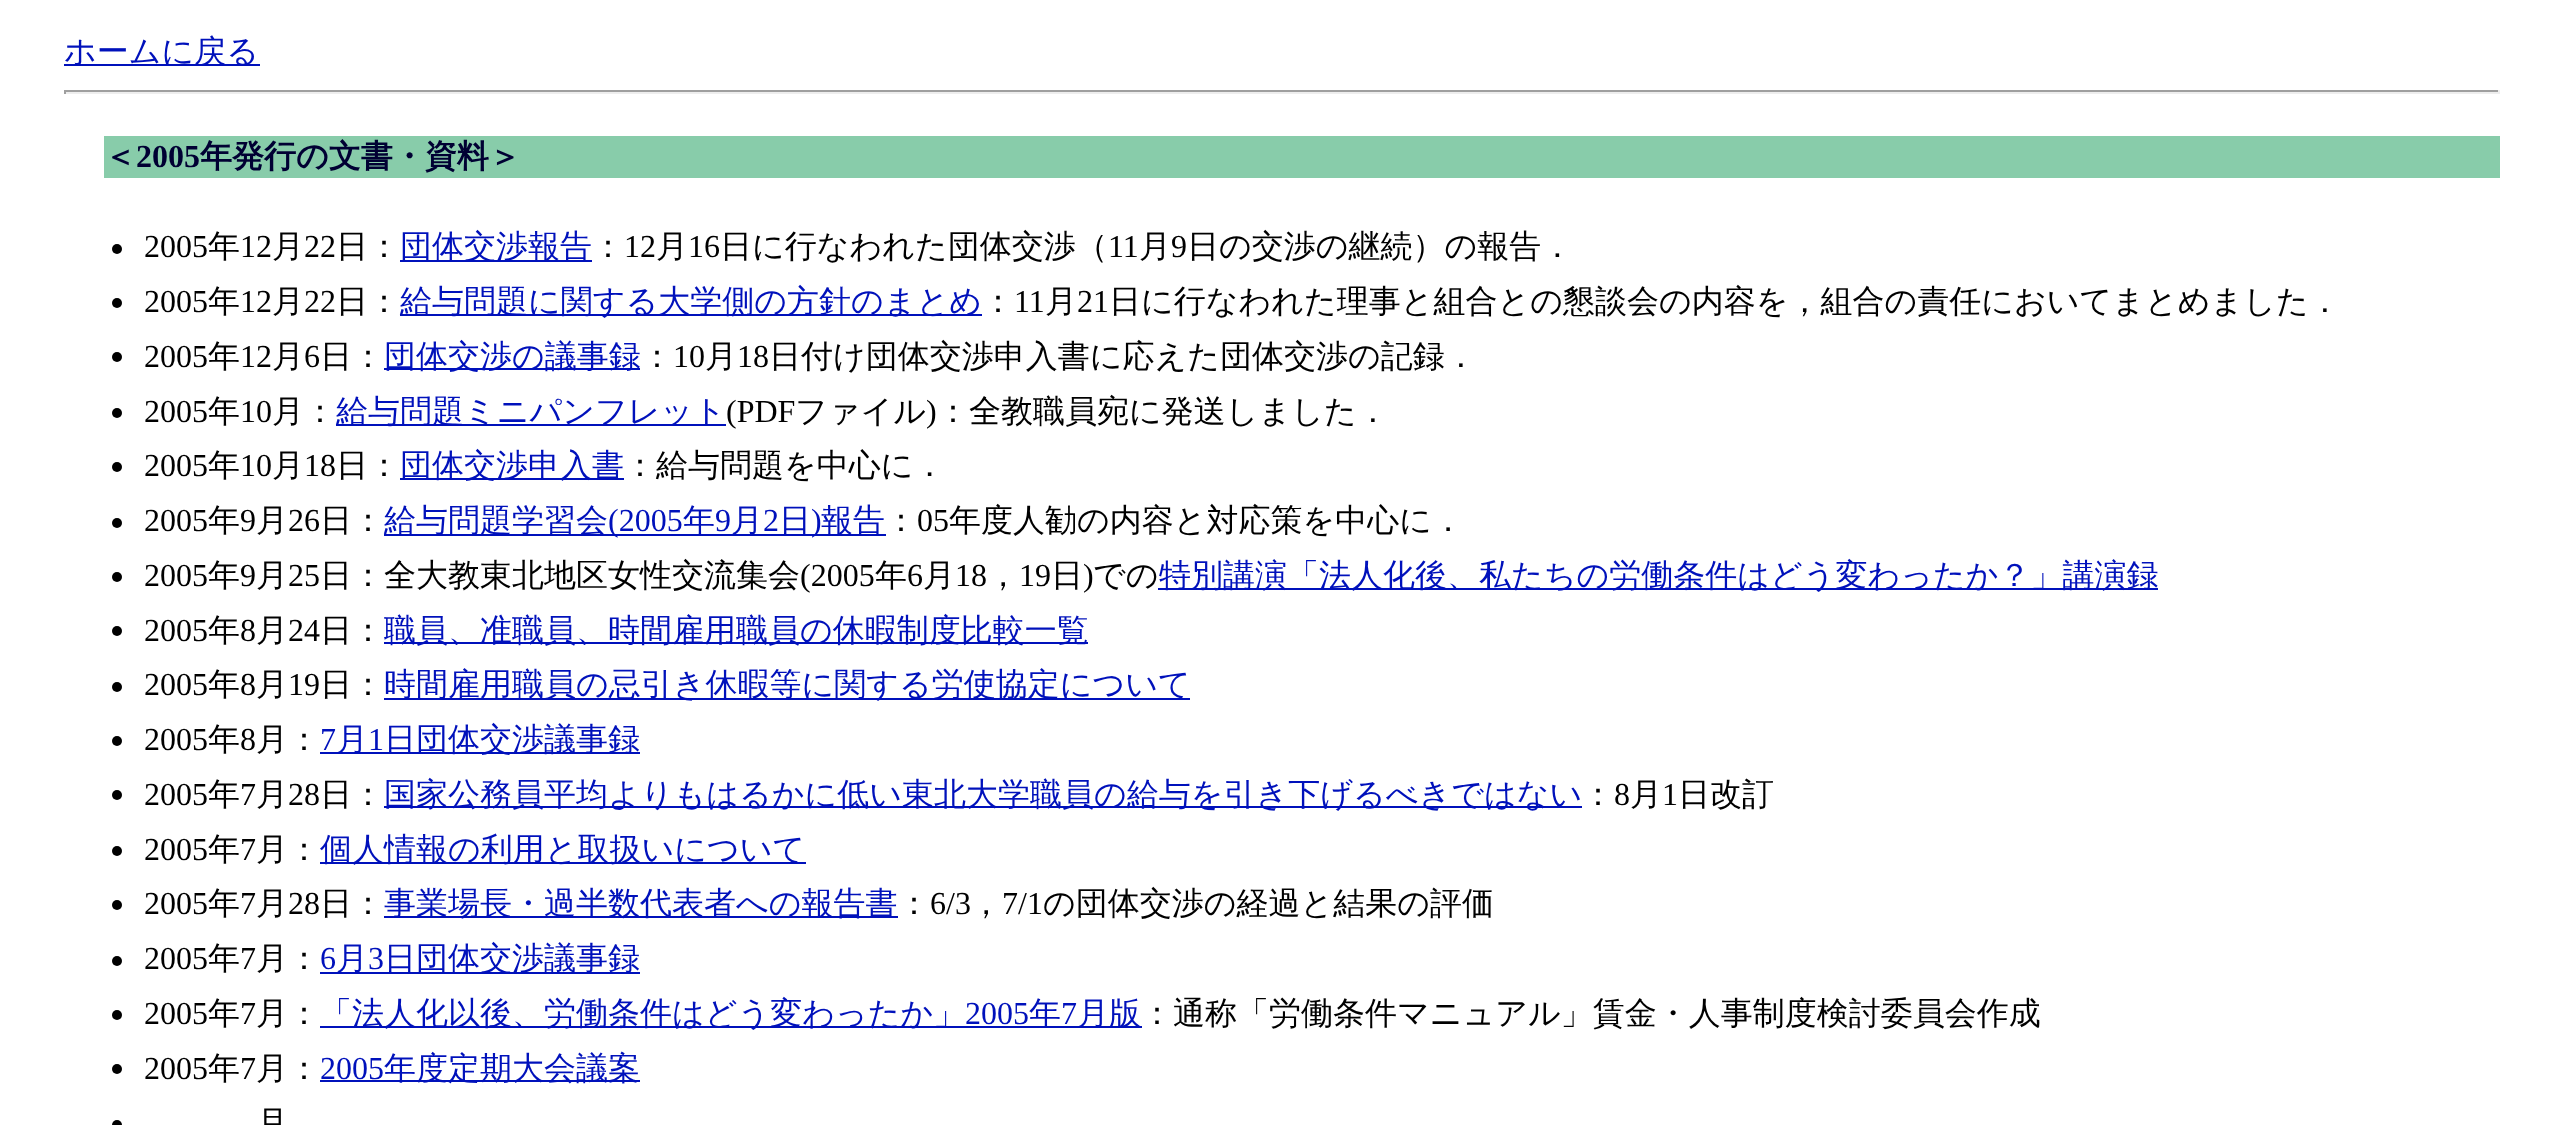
<svg xmlns="http://www.w3.org/2000/svg" width="2564" height="1125">
<rect width="100%" height="100%" fill="#fff"/>
<rect x="64" y="64" width="196" height="2" fill="#01b"/>
<text x="64" y="62" style="font-family:WenQuanYi Zen Hei;font-size:32px;font-weight:500;fill:#01b">ホームに戻る</text>
<rect x="64" y="90" width="2436" height="2" fill="#9f9f9f"/>
<rect x="2498" y="90" width="2" height="4" fill="#eee"/>
<rect x="64" y="92" width="2436" height="2" fill="#eee"/>
<rect x="64" y="90" width="2" height="4" fill="#9f9f9f"/>
<rect x="104" y="136" width="2396" height="42" fill="#8ca"/>
<text x="104" y="167" style="font-family:WenQuanYi Zen Hei;font-size:32px;font-weight:bold;fill:#003">＜</text>
<text x="136" y="167" style="font-family:Liberation Serif;font-size:32px;font-weight:bold;fill:#003">2005</text>
<text x="200" y="167" style="font-family:WenQuanYi Zen Hei;font-size:32px;font-weight:bold;fill:#003">年発行の文書・資料＞</text>
<circle cx="117" cy="249" r="5" fill="#000"/>
<text x="144" y="257" style="font-family:Liberation Serif;font-size:32px;fill:#000">2005</text>
<text x="208" y="257" style="font-family:WenQuanYi Zen Hei;font-size:32px;font-weight:500;fill:#000">年</text>
<text x="240" y="257" style="font-family:Liberation Serif;font-size:32px;fill:#000">12</text>
<text x="272" y="257" style="font-family:WenQuanYi Zen Hei;font-size:32px;font-weight:500;fill:#000">月</text>
<text x="304" y="257" style="font-family:Liberation Serif;font-size:32px;fill:#000">22</text>
<text x="336" y="257" style="font-family:WenQuanYi Zen Hei;font-size:32px;font-weight:500;fill:#000">日：</text>
<rect x="400" y="260" width="192" height="2" fill="#01b"/>
<text x="400" y="257" style="font-family:WenQuanYi Zen Hei;font-size:32px;font-weight:500;fill:#01b">団体交渉報告</text>
<text x="592" y="257" style="font-family:WenQuanYi Zen Hei;font-size:32px;font-weight:500;fill:#000">：</text>
<text x="624" y="257" style="font-family:Liberation Serif;font-size:32px;fill:#000">12</text>
<text x="656" y="257" style="font-family:WenQuanYi Zen Hei;font-size:32px;font-weight:500;fill:#000">月</text>
<text x="688" y="257" style="font-family:Liberation Serif;font-size:32px;fill:#000">16</text>
<text x="720" y="257" style="font-family:WenQuanYi Zen Hei;font-size:32px;font-weight:500;fill:#000">日に行なわれた団体交渉（</text>
<text x="1108" y="257" style="font-family:Liberation Serif;font-size:32px;fill:#000">11</text>
<text x="1139" y="257" style="font-family:WenQuanYi Zen Hei;font-size:32px;font-weight:500;fill:#000">月</text>
<text x="1171" y="257" style="font-family:Liberation Serif;font-size:32px;fill:#000">9</text>
<text x="1187" y="257" style="font-family:WenQuanYi Zen Hei;font-size:32px;font-weight:500;fill:#000">日の交渉の継続）の報告．</text>
<circle cx="117" cy="303" r="5" fill="#000"/>
<text x="144" y="312" style="font-family:Liberation Serif;font-size:32px;fill:#000">2005</text>
<text x="208" y="312" style="font-family:WenQuanYi Zen Hei;font-size:32px;font-weight:500;fill:#000">年</text>
<text x="240" y="312" style="font-family:Liberation Serif;font-size:32px;fill:#000">12</text>
<text x="272" y="312" style="font-family:WenQuanYi Zen Hei;font-size:32px;font-weight:500;fill:#000">月</text>
<text x="304" y="312" style="font-family:Liberation Serif;font-size:32px;fill:#000">22</text>
<text x="336" y="312" style="font-family:WenQuanYi Zen Hei;font-size:32px;font-weight:500;fill:#000">日：</text>
<rect x="400" y="314" width="582" height="2" fill="#01b"/>
<text x="400" y="312" style="font-family:WenQuanYi Zen Hei;font-size:32px;font-weight:500;fill:#01b">給与問題に関する大学側の方針のまとめ</text>
<text x="982" y="312" style="font-family:WenQuanYi Zen Hei;font-size:32px;font-weight:500;fill:#000">：</text>
<text x="1014" y="312" style="font-family:Liberation Serif;font-size:32px;fill:#000">11</text>
<text x="1045" y="312" style="font-family:WenQuanYi Zen Hei;font-size:32px;font-weight:500;fill:#000">月</text>
<text x="1077" y="312" style="font-family:Liberation Serif;font-size:32px;fill:#000">21</text>
<text x="1109" y="312" style="font-family:WenQuanYi Zen Hei;font-size:32px;font-weight:500;fill:#000">日に行なわれた理事と組合との懇談会の内容を，組合の責任においてまとめました．</text>
<circle cx="117" cy="357" r="5" fill="#000"/>
<text x="144" y="367" style="font-family:Liberation Serif;font-size:32px;fill:#000">2005</text>
<text x="208" y="367" style="font-family:WenQuanYi Zen Hei;font-size:32px;font-weight:500;fill:#000">年</text>
<text x="240" y="367" style="font-family:Liberation Serif;font-size:32px;fill:#000">12</text>
<text x="272" y="367" style="font-family:WenQuanYi Zen Hei;font-size:32px;font-weight:500;fill:#000">月</text>
<text x="304" y="367" style="font-family:Liberation Serif;font-size:32px;fill:#000">6</text>
<text x="320" y="367" style="font-family:WenQuanYi Zen Hei;font-size:32px;font-weight:500;fill:#000">日：</text>
<rect x="384" y="368" width="256" height="2" fill="#01b"/>
<text x="384" y="367" style="font-family:WenQuanYi Zen Hei;font-size:32px;font-weight:500;fill:#01b">団体交渉の議事録</text>
<text x="641" y="367" style="font-family:WenQuanYi Zen Hei;font-size:32px;font-weight:500;fill:#000">：</text>
<text x="673" y="367" style="font-family:Liberation Serif;font-size:32px;fill:#000">10</text>
<text x="705" y="367" style="font-family:WenQuanYi Zen Hei;font-size:32px;font-weight:500;fill:#000">月</text>
<text x="737" y="367" style="font-family:Liberation Serif;font-size:32px;fill:#000">18</text>
<text x="769" y="367" style="font-family:WenQuanYi Zen Hei;font-size:32px;font-weight:500;fill:#000">日付け団体交渉申入書に応えた団体交渉の記録．</text>
<circle cx="117" cy="413" r="5" fill="#000"/>
<text x="144" y="422" style="font-family:Liberation Serif;font-size:32px;fill:#000">2005</text>
<text x="208" y="422" style="font-family:WenQuanYi Zen Hei;font-size:32px;font-weight:500;fill:#000">年</text>
<text x="240" y="422" style="font-family:Liberation Serif;font-size:32px;fill:#000">10</text>
<text x="272" y="422" style="font-family:WenQuanYi Zen Hei;font-size:32px;font-weight:500;fill:#000">月：</text>
<rect x="336" y="424" width="390" height="2" fill="#01b"/>
<text x="336" y="422" style="font-family:WenQuanYi Zen Hei;font-size:32px;font-weight:500;fill:#01b">給与問題ミニパンフレット</text>
<text x="726" y="422" style="font-family:Liberation Serif;font-size:32px;fill:#000">(PDF</text>
<text x="795" y="422" style="font-family:WenQuanYi Zen Hei;font-size:32px;font-weight:500;fill:#000">ファイル</text>
<text x="926" y="422" style="font-family:Liberation Serif;font-size:32px;fill:#000">)</text>
<text x="937" y="422" style="font-family:WenQuanYi Zen Hei;font-size:32px;font-weight:500;fill:#000">：全教職員宛に発送しました．</text>
<circle cx="117" cy="467" r="5" fill="#000"/>
<text x="144" y="476" style="font-family:Liberation Serif;font-size:32px;fill:#000">2005</text>
<text x="208" y="476" style="font-family:WenQuanYi Zen Hei;font-size:32px;font-weight:500;fill:#000">年</text>
<text x="240" y="476" style="font-family:Liberation Serif;font-size:32px;fill:#000">10</text>
<text x="272" y="476" style="font-family:WenQuanYi Zen Hei;font-size:32px;font-weight:500;fill:#000">月</text>
<text x="304" y="476" style="font-family:Liberation Serif;font-size:32px;fill:#000">18</text>
<text x="336" y="476" style="font-family:WenQuanYi Zen Hei;font-size:32px;font-weight:500;fill:#000">日：</text>
<rect x="400" y="478" width="224" height="2" fill="#01b"/>
<text x="400" y="476" style="font-family:WenQuanYi Zen Hei;font-size:32px;font-weight:500;fill:#01b">団体交渉申入書</text>
<text x="624" y="476" style="font-family:WenQuanYi Zen Hei;font-size:32px;font-weight:500;fill:#000">：給与問題を中心に．</text>
<circle cx="117" cy="523" r="5" fill="#000"/>
<text x="144" y="531" style="font-family:Liberation Serif;font-size:32px;fill:#000">2005</text>
<text x="208" y="531" style="font-family:WenQuanYi Zen Hei;font-size:32px;font-weight:500;fill:#000">年</text>
<text x="240" y="531" style="font-family:Liberation Serif;font-size:32px;fill:#000">9</text>
<text x="256" y="531" style="font-family:WenQuanYi Zen Hei;font-size:32px;font-weight:500;fill:#000">月</text>
<text x="288" y="531" style="font-family:Liberation Serif;font-size:32px;fill:#000">26</text>
<text x="320" y="531" style="font-family:WenQuanYi Zen Hei;font-size:32px;font-weight:500;fill:#000">日：</text>
<rect x="384" y="534" width="502" height="2" fill="#01b"/>
<text x="384" y="531" style="font-family:WenQuanYi Zen Hei;font-size:32px;font-weight:500;fill:#01b">給与問題学習会</text>
<text x="608" y="531" style="font-family:Liberation Serif;font-size:32px;fill:#01b">(2005</text>
<text x="683" y="531" style="font-family:WenQuanYi Zen Hei;font-size:32px;font-weight:500;fill:#01b">年</text>
<text x="715" y="531" style="font-family:Liberation Serif;font-size:32px;fill:#01b">9</text>
<text x="731" y="531" style="font-family:WenQuanYi Zen Hei;font-size:32px;font-weight:500;fill:#01b">月</text>
<text x="763" y="531" style="font-family:Liberation Serif;font-size:32px;fill:#01b">2</text>
<text x="779" y="531" style="font-family:WenQuanYi Zen Hei;font-size:32px;font-weight:500;fill:#01b">日</text>
<text x="811" y="531" style="font-family:Liberation Serif;font-size:32px;fill:#01b">)</text>
<text x="821" y="531" style="font-family:WenQuanYi Zen Hei;font-size:32px;font-weight:500;fill:#01b">報告</text>
<text x="885" y="531" style="font-family:WenQuanYi Zen Hei;font-size:32px;font-weight:500;fill:#000">：</text>
<text x="917" y="531" style="font-family:Liberation Serif;font-size:32px;fill:#000">05</text>
<text x="949" y="531" style="font-family:WenQuanYi Zen Hei;font-size:32px;font-weight:500;fill:#000">年度人勧の内容と対応策を中心に．</text>
<circle cx="117" cy="577" r="5" fill="#000"/>
<text x="144" y="586" style="font-family:Liberation Serif;font-size:32px;fill:#000">2005</text>
<text x="208" y="586" style="font-family:WenQuanYi Zen Hei;font-size:32px;font-weight:500;fill:#000">年</text>
<text x="240" y="586" style="font-family:Liberation Serif;font-size:32px;fill:#000">9</text>
<text x="256" y="586" style="font-family:WenQuanYi Zen Hei;font-size:32px;font-weight:500;fill:#000">月</text>
<text x="288" y="586" style="font-family:Liberation Serif;font-size:32px;fill:#000">25</text>
<text x="320" y="586" style="font-family:WenQuanYi Zen Hei;font-size:32px;font-weight:500;fill:#000">日：全大教東北地区女性交流集会</text>
<text x="800" y="586" style="font-family:Liberation Serif;font-size:32px;fill:#000">(2005</text>
<text x="875" y="586" style="font-family:WenQuanYi Zen Hei;font-size:32px;font-weight:500;fill:#000">年</text>
<text x="907" y="586" style="font-family:Liberation Serif;font-size:32px;fill:#000">6</text>
<text x="923" y="586" style="font-family:WenQuanYi Zen Hei;font-size:32px;font-weight:500;fill:#000">月</text>
<text x="955" y="586" style="font-family:Liberation Serif;font-size:32px;fill:#000">18</text>
<text x="1019" y="586" style="font-family:Liberation Serif;font-size:32px;fill:#000">19</text>
<text x="1051" y="586" style="font-family:WenQuanYi Zen Hei;font-size:32px;font-weight:500;fill:#000">日</text>
<text x="1083" y="586" style="font-family:Liberation Serif;font-size:32px;fill:#000">)</text>
<text x="1093" y="586" style="font-family:WenQuanYi Zen Hei;font-size:32px;font-weight:500;fill:#000">での</text>
<rect x="1158" y="588" width="1000" height="2" fill="#01b"/>
<text x="1159" y="586" style="font-family:WenQuanYi Zen Hei;font-size:32px;font-weight:500;fill:#01b">特別講演「法人化後、私たちの労働条件はどう変わったか？」講演録</text>
<text x="987" y="586" style="font-family:WenQuanYi Zen Hei;font-size:32px;font-weight:500;fill:#000">，</text>
<circle cx="117" cy="631" r="5" fill="#000"/>
<text x="144" y="641" style="font-family:Liberation Serif;font-size:32px;fill:#000">2005</text>
<text x="208" y="641" style="font-family:WenQuanYi Zen Hei;font-size:32px;font-weight:500;fill:#000">年</text>
<text x="240" y="641" style="font-family:Liberation Serif;font-size:32px;fill:#000">8</text>
<text x="256" y="641" style="font-family:WenQuanYi Zen Hei;font-size:32px;font-weight:500;fill:#000">月</text>
<text x="288" y="641" style="font-family:Liberation Serif;font-size:32px;fill:#000">24</text>
<text x="320" y="641" style="font-family:WenQuanYi Zen Hei;font-size:32px;font-weight:500;fill:#000">日：</text>
<rect x="384" y="642" width="704" height="2" fill="#01b"/>
<text x="384" y="641" style="font-family:WenQuanYi Zen Hei;font-size:32px;font-weight:500;fill:#01b">職員、准職員、時間雇用職員の休暇制度比較一覧</text>
<circle cx="117" cy="687" r="5" fill="#000"/>
<text x="144" y="695" style="font-family:Liberation Serif;font-size:32px;fill:#000">2005</text>
<text x="208" y="695" style="font-family:WenQuanYi Zen Hei;font-size:32px;font-weight:500;fill:#000">年</text>
<text x="240" y="695" style="font-family:Liberation Serif;font-size:32px;fill:#000">8</text>
<text x="256" y="695" style="font-family:WenQuanYi Zen Hei;font-size:32px;font-weight:500;fill:#000">月</text>
<text x="288" y="695" style="font-family:Liberation Serif;font-size:32px;fill:#000">19</text>
<text x="320" y="695" style="font-family:WenQuanYi Zen Hei;font-size:32px;font-weight:500;fill:#000">日：</text>
<rect x="384" y="698" width="806" height="2" fill="#01b"/>
<text x="384" y="695" style="font-family:WenQuanYi Zen Hei;font-size:32px;font-weight:500;fill:#01b">時間雇用職員の忌引き休暇等に関する労使協定について</text>
<circle cx="117" cy="741" r="5" fill="#000"/>
<text x="144" y="750" style="font-family:Liberation Serif;font-size:32px;fill:#000">2005</text>
<text x="208" y="750" style="font-family:WenQuanYi Zen Hei;font-size:32px;font-weight:500;fill:#000">年</text>
<text x="240" y="750" style="font-family:Liberation Serif;font-size:32px;fill:#000">8</text>
<text x="256" y="750" style="font-family:WenQuanYi Zen Hei;font-size:32px;font-weight:500;fill:#000">月：</text>
<text x="320" y="750" style="font-family:Liberation Serif;font-size:32px;fill:#01b">7</text>
<rect x="320" y="752" width="320" height="2" fill="#01b"/>
<text x="336" y="750" style="font-family:WenQuanYi Zen Hei;font-size:32px;font-weight:500;fill:#01b">月</text>
<text x="368" y="750" style="font-family:Liberation Serif;font-size:32px;fill:#01b">1</text>
<text x="384" y="750" style="font-family:WenQuanYi Zen Hei;font-size:32px;font-weight:500;fill:#01b">日団体交渉議事録</text>
<circle cx="117" cy="795" r="5" fill="#000"/>
<text x="144" y="805" style="font-family:Liberation Serif;font-size:32px;fill:#000">2005</text>
<text x="208" y="805" style="font-family:WenQuanYi Zen Hei;font-size:32px;font-weight:500;fill:#000">年</text>
<text x="240" y="805" style="font-family:Liberation Serif;font-size:32px;fill:#000">7</text>
<text x="256" y="805" style="font-family:WenQuanYi Zen Hei;font-size:32px;font-weight:500;fill:#000">月</text>
<text x="288" y="805" style="font-family:Liberation Serif;font-size:32px;fill:#000">28</text>
<text x="320" y="805" style="font-family:WenQuanYi Zen Hei;font-size:32px;font-weight:500;fill:#000">日：</text>
<rect x="384" y="806" width="1198" height="2" fill="#01b"/>
<text x="384" y="805" style="font-family:WenQuanYi Zen Hei;font-size:32px;font-weight:500;fill:#01b">国家公務員平均よりもはるかに低い東北大学職員の給与を引き下げるべきではない</text>
<text x="1582" y="805" style="font-family:WenQuanYi Zen Hei;font-size:32px;font-weight:500;fill:#000">：</text>
<text x="1614" y="805" style="font-family:Liberation Serif;font-size:32px;fill:#000">8</text>
<text x="1630" y="805" style="font-family:WenQuanYi Zen Hei;font-size:32px;font-weight:500;fill:#000">月</text>
<text x="1662" y="805" style="font-family:Liberation Serif;font-size:32px;fill:#000">1</text>
<text x="1678" y="805" style="font-family:WenQuanYi Zen Hei;font-size:32px;font-weight:500;fill:#000">日改訂</text>
<circle cx="117" cy="851" r="5" fill="#000"/>
<text x="144" y="860" style="font-family:Liberation Serif;font-size:32px;fill:#000">2005</text>
<text x="208" y="860" style="font-family:WenQuanYi Zen Hei;font-size:32px;font-weight:500;fill:#000">年</text>
<text x="240" y="860" style="font-family:Liberation Serif;font-size:32px;fill:#000">7</text>
<text x="256" y="860" style="font-family:WenQuanYi Zen Hei;font-size:32px;font-weight:500;fill:#000">月：</text>
<rect x="320" y="862" width="486" height="2" fill="#01b"/>
<text x="320" y="860" style="font-family:WenQuanYi Zen Hei;font-size:32px;font-weight:500;fill:#01b">個人情報の利用と取扱いについて</text>
<circle cx="117" cy="905" r="5" fill="#000"/>
<text x="144" y="914" style="font-family:Liberation Serif;font-size:32px;fill:#000">2005</text>
<text x="208" y="914" style="font-family:WenQuanYi Zen Hei;font-size:32px;font-weight:500;fill:#000">年</text>
<text x="240" y="914" style="font-family:Liberation Serif;font-size:32px;fill:#000">7</text>
<text x="256" y="914" style="font-family:WenQuanYi Zen Hei;font-size:32px;font-weight:500;fill:#000">月</text>
<text x="288" y="914" style="font-family:Liberation Serif;font-size:32px;fill:#000">28</text>
<text x="320" y="914" style="font-family:WenQuanYi Zen Hei;font-size:32px;font-weight:500;fill:#000">日：</text>
<rect x="384" y="916" width="514" height="2" fill="#01b"/>
<text x="384" y="914" style="font-family:WenQuanYi Zen Hei;font-size:32px;font-weight:500;fill:#01b">事業場長・過半数代表者への報告書</text>
<text x="898" y="914" style="font-family:WenQuanYi Zen Hei;font-size:32px;font-weight:500;fill:#000">：</text>
<text x="930" y="914" style="font-family:Liberation Serif;font-size:32px;fill:#000">6/3</text>
<text x="1002" y="914" style="font-family:Liberation Serif;font-size:32px;fill:#000">7/1</text>
<text x="1043" y="914" style="font-family:WenQuanYi Zen Hei;font-size:32px;font-weight:500;fill:#000">の団体交渉の経過と結果の評価</text>
<text x="970" y="914" style="font-family:WenQuanYi Zen Hei;font-size:32px;font-weight:500;fill:#000">，</text>
<circle cx="117" cy="961" r="5" fill="#000"/>
<text x="144" y="969" style="font-family:Liberation Serif;font-size:32px;fill:#000">2005</text>
<text x="208" y="969" style="font-family:WenQuanYi Zen Hei;font-size:32px;font-weight:500;fill:#000">年</text>
<text x="240" y="969" style="font-family:Liberation Serif;font-size:32px;fill:#000">7</text>
<text x="256" y="969" style="font-family:WenQuanYi Zen Hei;font-size:32px;font-weight:500;fill:#000">月：</text>
<text x="320" y="969" style="font-family:Liberation Serif;font-size:32px;fill:#01b">6</text>
<rect x="320" y="972" width="320" height="2" fill="#01b"/>
<text x="336" y="969" style="font-family:WenQuanYi Zen Hei;font-size:32px;font-weight:500;fill:#01b">月</text>
<text x="368" y="969" style="font-family:Liberation Serif;font-size:32px;fill:#01b">3</text>
<text x="384" y="969" style="font-family:WenQuanYi Zen Hei;font-size:32px;font-weight:500;fill:#01b">日団体交渉議事録</text>
<circle cx="117" cy="1015" r="5" fill="#000"/>
<text x="144" y="1024" style="font-family:Liberation Serif;font-size:32px;fill:#000">2005</text>
<text x="208" y="1024" style="font-family:WenQuanYi Zen Hei;font-size:32px;font-weight:500;fill:#000">年</text>
<text x="240" y="1024" style="font-family:Liberation Serif;font-size:32px;fill:#000">7</text>
<text x="256" y="1024" style="font-family:WenQuanYi Zen Hei;font-size:32px;font-weight:500;fill:#000">月：</text>
<rect x="320" y="1026" width="822" height="2" fill="#01b"/>
<text x="320" y="1024" style="font-family:WenQuanYi Zen Hei;font-size:32px;font-weight:500;fill:#01b">「法人化以後、労働条件はどう変わったか」</text>
<text x="965" y="1024" style="font-family:Liberation Serif;font-size:32px;fill:#01b">2005</text>
<text x="1029" y="1024" style="font-family:WenQuanYi Zen Hei;font-size:32px;font-weight:500;fill:#01b">年</text>
<text x="1061" y="1024" style="font-family:Liberation Serif;font-size:32px;fill:#01b">7</text>
<text x="1077" y="1024" style="font-family:WenQuanYi Zen Hei;font-size:32px;font-weight:500;fill:#01b">月版</text>
<text x="1141" y="1024" style="font-family:WenQuanYi Zen Hei;font-size:32px;font-weight:500;fill:#000">：通称「労働条件マニュアル」賃金・人事制度検討委員会作成</text>
<circle cx="117" cy="1069" r="5" fill="#000"/>
<text x="144" y="1079" style="font-family:Liberation Serif;font-size:32px;fill:#000">2005</text>
<text x="208" y="1079" style="font-family:WenQuanYi Zen Hei;font-size:32px;font-weight:500;fill:#000">年</text>
<text x="240" y="1079" style="font-family:Liberation Serif;font-size:32px;fill:#000">7</text>
<text x="256" y="1079" style="font-family:WenQuanYi Zen Hei;font-size:32px;font-weight:500;fill:#000">月：</text>
<text x="320" y="1079" style="font-family:Liberation Serif;font-size:32px;fill:#01b">2005</text>
<rect x="320" y="1080" width="320" height="2" fill="#01b"/>
<text x="384" y="1079" style="font-family:WenQuanYi Zen Hei;font-size:32px;font-weight:500;fill:#01b">年度定期大会議案</text>
<circle cx="117" cy="1125" r="5" fill="#000"/>
<text x="256" y="1133" style="font-family:WenQuanYi Zen Hei;font-size:32px;font-weight:500;fill:#000">月</text>
</svg>
